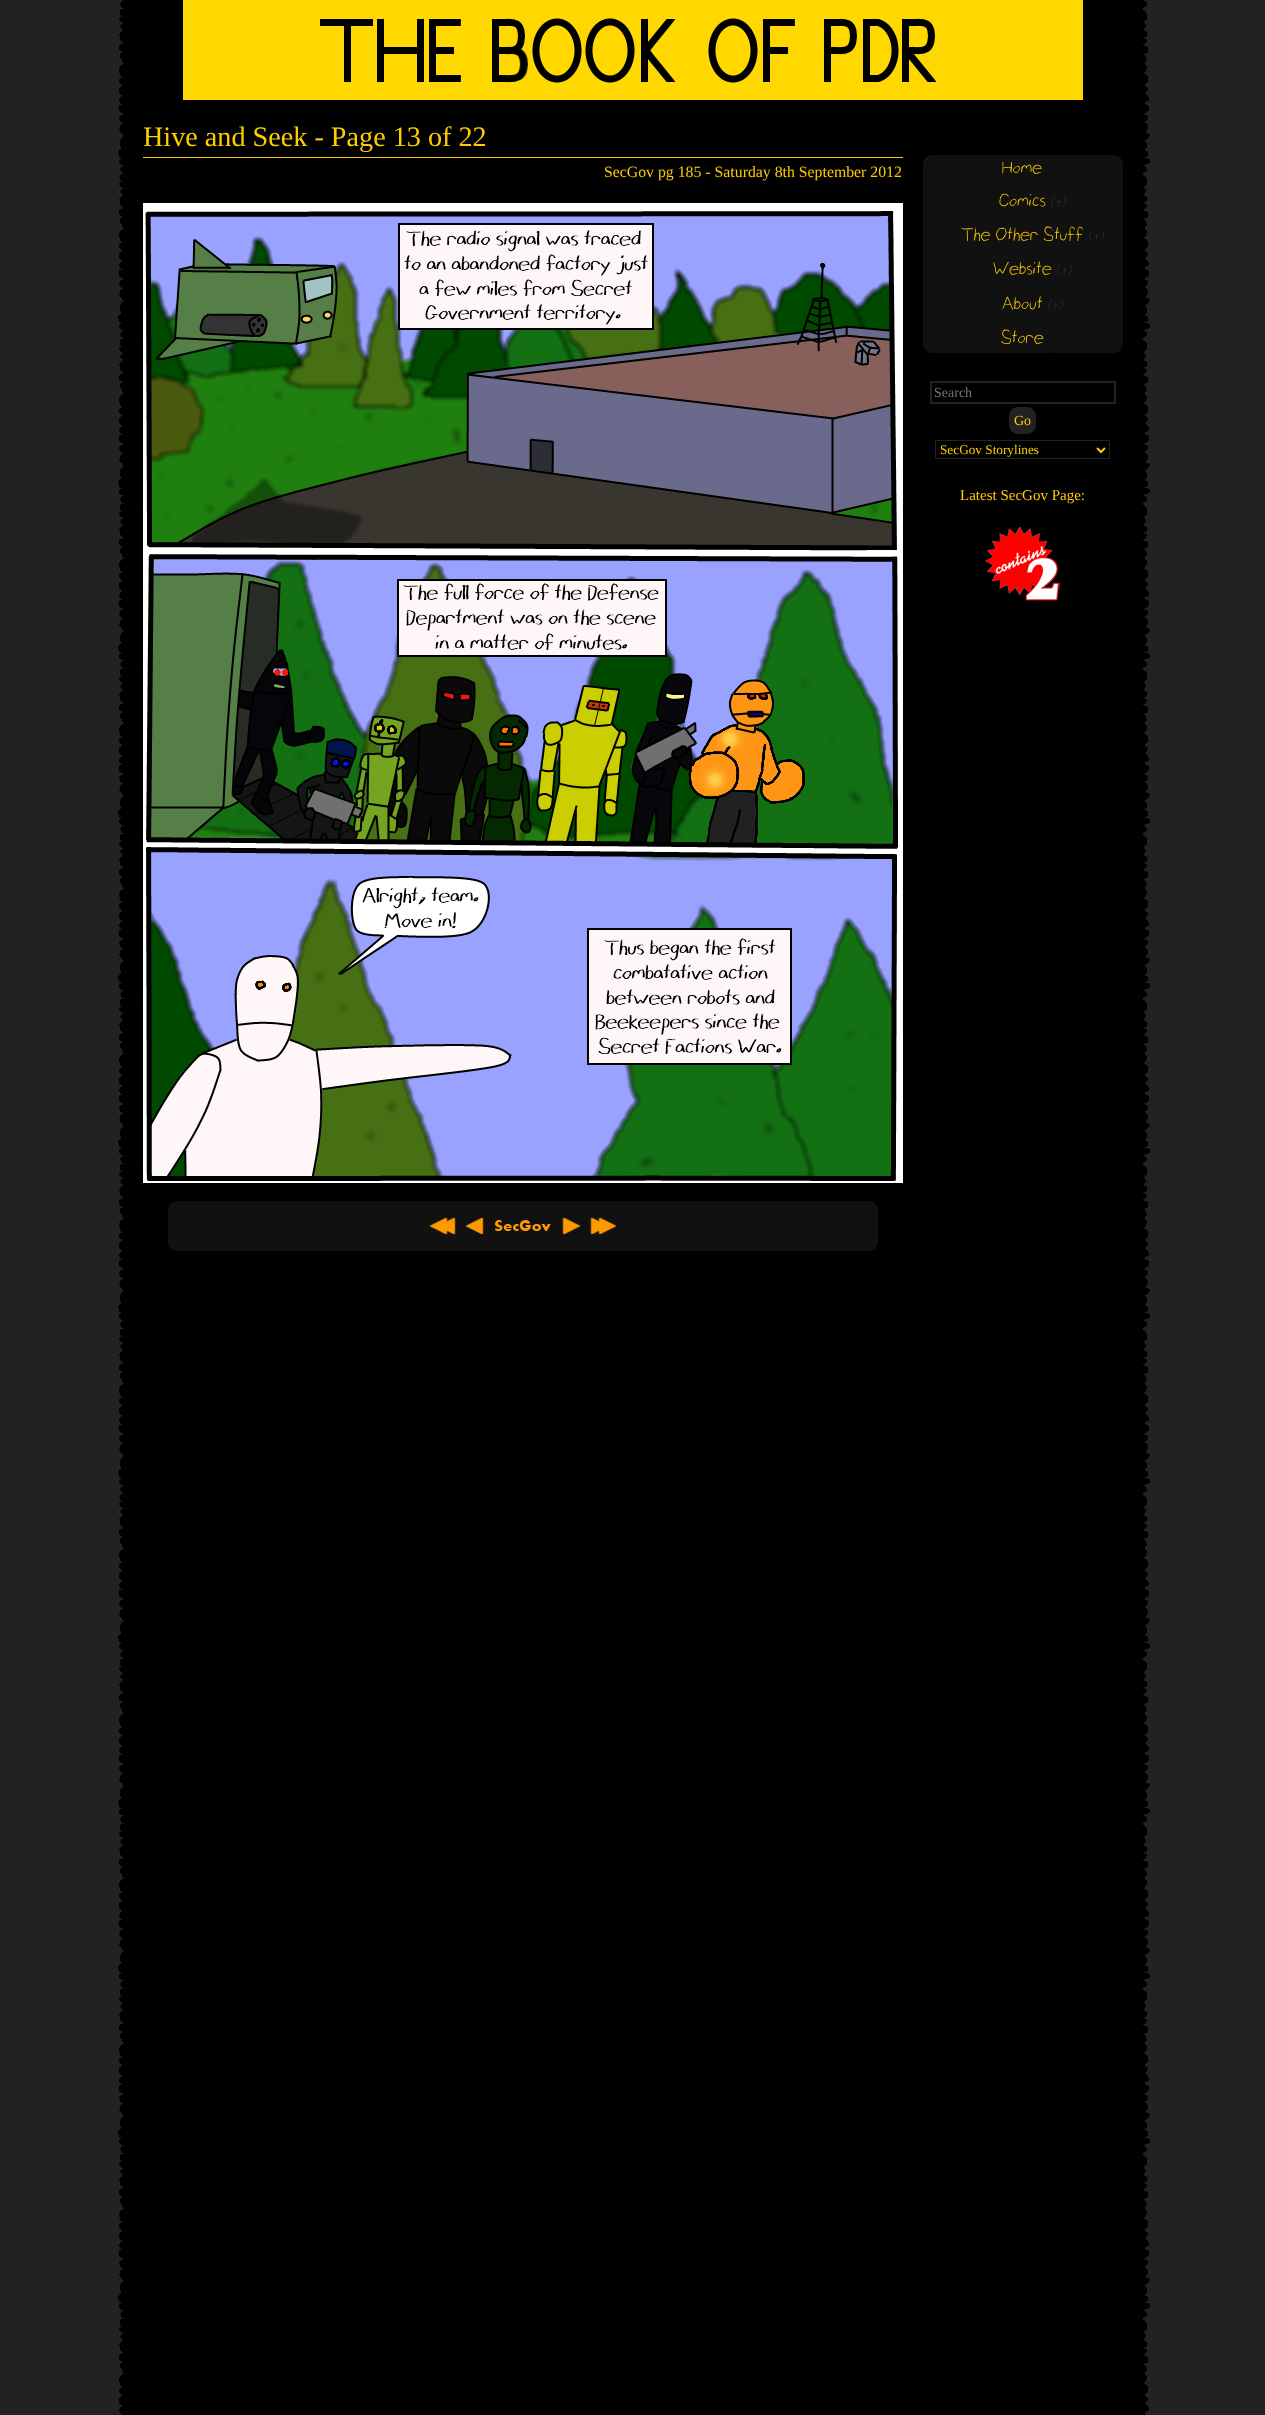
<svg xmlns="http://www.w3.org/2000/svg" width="1265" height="2415">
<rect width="100%" height="100%" fill="#222"/>
<image x="118" y="0" width="1039" height="2415" href="media/1.png"/>
<image x="183" y="0" width="900" height="100" href="media/2.png"/>
<rect x="143" y="157" width="760" height="1" fill="#fc0"/>
<text x="143" y="146" style="font-family:Liberation Serif;font-size:28.2px;fill:#fc0">Hive and Seek - Page 13 of 22</text>
<text x="604" y="177" style="font-family:Liberation Serif;font-size:15.8px;fill:#fc0">SecGov pg 185 - Saturday 8th September 2012</text>
<image x="143" y="203" width="760" height="980" href="media/3.png"/>
<rect x="168" y="1201" width="710" height="50" rx="9" fill="#111"/>
<image x="429" y="1217" width="188" height="18" href="media/4.png"/>
<rect x="923" y="155" width="200" height="198" rx="9" fill="#111"/>
<text x="1002" y="173" style="font-family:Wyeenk;font-size:14px;fill:#fc0">Home</text>
<text x="999" y="206" style="font-family:Wyeenk;font-size:14px;fill:#fc0">Comics</text>
<text x="1051" y="206" style="font-family:Wyeenk;font-size:10px;fill:#333">(+)</text>
<text x="961" y="240" style="font-family:Wyeenk;font-size:14px;fill:#fc0">The Other Stuff</text>
<text x="1089" y="240" style="font-family:Wyeenk;font-size:10px;fill:#333">(+)</text>
<text x="993" y="274" style="font-family:Wyeenk;font-size:14px;fill:#fc0">Website</text>
<text x="1057" y="274" style="font-family:Wyeenk;font-size:10px;fill:#333">(+)</text>
<text x="1002" y="309" style="font-family:Wyeenk;font-size:14px;fill:#fc0">About</text>
<text x="1048" y="309" style="font-family:Wyeenk;font-size:10px;fill:#333">(+)</text>
<text x="1001" y="343" style="font-family:Wyeenk;font-size:14px;fill:#fc0">Store</text>
<rect x="931" y="382" width="184" height="21" fill="none" stroke="#222" stroke-width="2"/>
<text x="934" y="397" style="font-family:Liberation Serif;font-size:14px;fill:#757575">Search</text>
<rect x="1009" y="407" width="27" height="27" rx="9" fill="#222"/>
<text x="1014" y="425" style="font-family:Liberation Serif;font-size:14px;fill:#fc0">Go</text>
<rect x="1002" y="456" width="1" height="1" fill="#000"/>
<rect x="935.5" y="440.5" width="174" height="18" fill="none" stroke="#222"/>
<path d="M1097 448l4 4l4-4" fill="none" stroke="#fc0" stroke-width="2"/>
<text x="940" y="454" style="font-family:Liberation Serif;font-size:13.25px;fill:#fc0">SecGov Storylines</text>
<text x="960" y="500" style="font-family:Liberation Serif;font-size:15px;fill:#fc0">Latest SecGov Page:</text>
<image x="985" y="527" width="75" height="74" href="media/5.png"/>
</svg>
